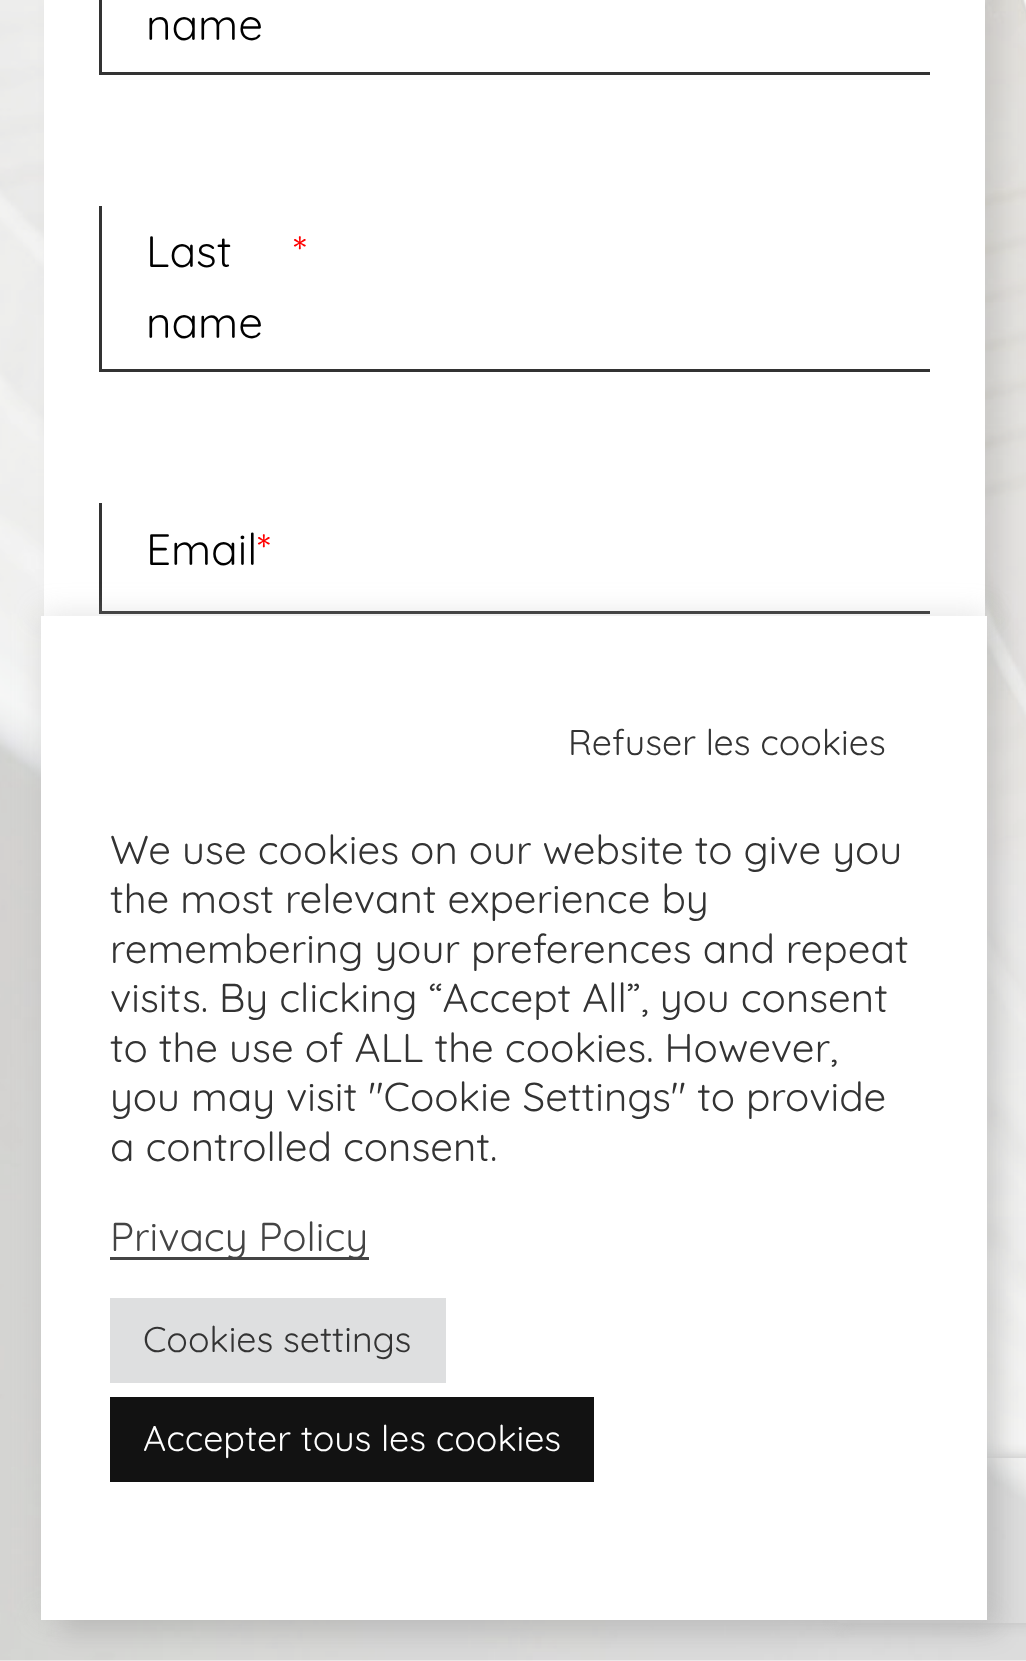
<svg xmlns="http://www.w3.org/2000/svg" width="1026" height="1661">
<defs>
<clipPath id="clip1"><path d="M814 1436h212v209h-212zm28 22h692c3.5 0 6 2.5 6 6v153c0 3.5-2.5 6-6 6h-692c-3.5 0-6-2.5-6-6v-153c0-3.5 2.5-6 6-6z" clip-rule="evenodd"/></clipPath>
</defs>
<rect width="100%" height="100%" fill="#fff"/>
<image x="0" y="0" width="1026" height="1661" href="media/1.png"/>
<rect x="61" y="-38" width="940" height="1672" fill="#0000001a" filter="blur(12.5px)"/>
<rect x="44" width="941" height="616" fill="#fff"/>
<rect x="99" y="72" width="831" height="3" fill="#333"/>
<rect x="99" width="3" height="74" fill="#333"/>
<text x="146" y="40" style="font-family:Quicksand;font-size:44px;fill:#000">name</text>
<rect x="99" y="369" width="831" height="3" fill="#333"/>
<rect x="99" y="206" width="3" height="165" fill="#333"/>
<text x="146" y="267" style="font-family:Quicksand;font-size:44px;fill:#000">Last</text>
<text x="293" y="267" style="font-family:Quicksand;font-size:44px;fill:#f00">*</text>
<text x="146" y="338" style="font-family:Quicksand;font-size:44px;fill:#000">name</text>
<rect x="99" y="611" width="831" height="3" fill="#333"/>
<rect x="99" y="503" width="3" height="110" fill="#333"/>
<text x="146" y="565" style="font-family:Quicksand;font-size:44px;fill:#000">Email</text>
<text x="257" y="565" style="font-family:Quicksand;font-size:44px;fill:#f00">*</text>
<rect x="41" y="613" width="946" height="1004" fill="#acabab4d" filter="blur(14px)"/>
<g clip-path="url(#clip1)">
<rect x="836" y="1458" width="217" height="165" rx="6" fill="#c0c0c0" filter="blur(7px)"/>
</g>
<rect x="41" y="616" width="946" height="1004" fill="#fff"/>
<text x="568" y="755" style="font-family:Quicksand;font-size:35.75px;fill:#333">Refuser les cookies</text>
<text x="110" y="864" style="font-family:Quicksand;font-size:40.3px;fill:#333">We use cookies on our website to give you</text>
<text x="110" y="913" style="font-family:Quicksand;font-size:40.3px;fill:#333">the most relevant experience by</text>
<text x="110" y="963" style="font-family:Quicksand;font-size:40.3px;fill:#333">remembering your preferences and repeat</text>
<text x="110" y="1012" style="font-family:Quicksand;font-size:40.3px;fill:#333">visits. By clicking “Accept All”, you consent</text>
<text x="110" y="1062" style="font-family:Quicksand;font-size:40.3px;fill:#333">to the use of ALL the cookies. However,</text>
<text x="110" y="1111" style="font-family:Quicksand;font-size:40.3px;fill:#333">you may visit "Cookie Settings" to provide</text>
<text x="110" y="1161" style="font-family:Quicksand;font-size:40.3px;fill:#333">a controlled consent.</text>
<rect x="110" y="1257" width="259" height="3" fill="#444"/>
<text x="110" y="1251" style="font-family:Quicksand;font-size:40.3px;fill:#444">Privacy Policy</text>
<rect x="110" y="1298" width="336" height="85" fill="#dedfe0"/>
<text x="143" y="1352" style="font-family:Quicksand;font-size:35.75px;fill:#333">Cookies settings</text>
<rect x="110" y="1397" width="484" height="85" fill="#121212"/>
<text x="143" y="1451" style="font-family:Quicksand;font-size:35.75px;fill:#fff">Accepter tous les cookies</text>
</svg>
